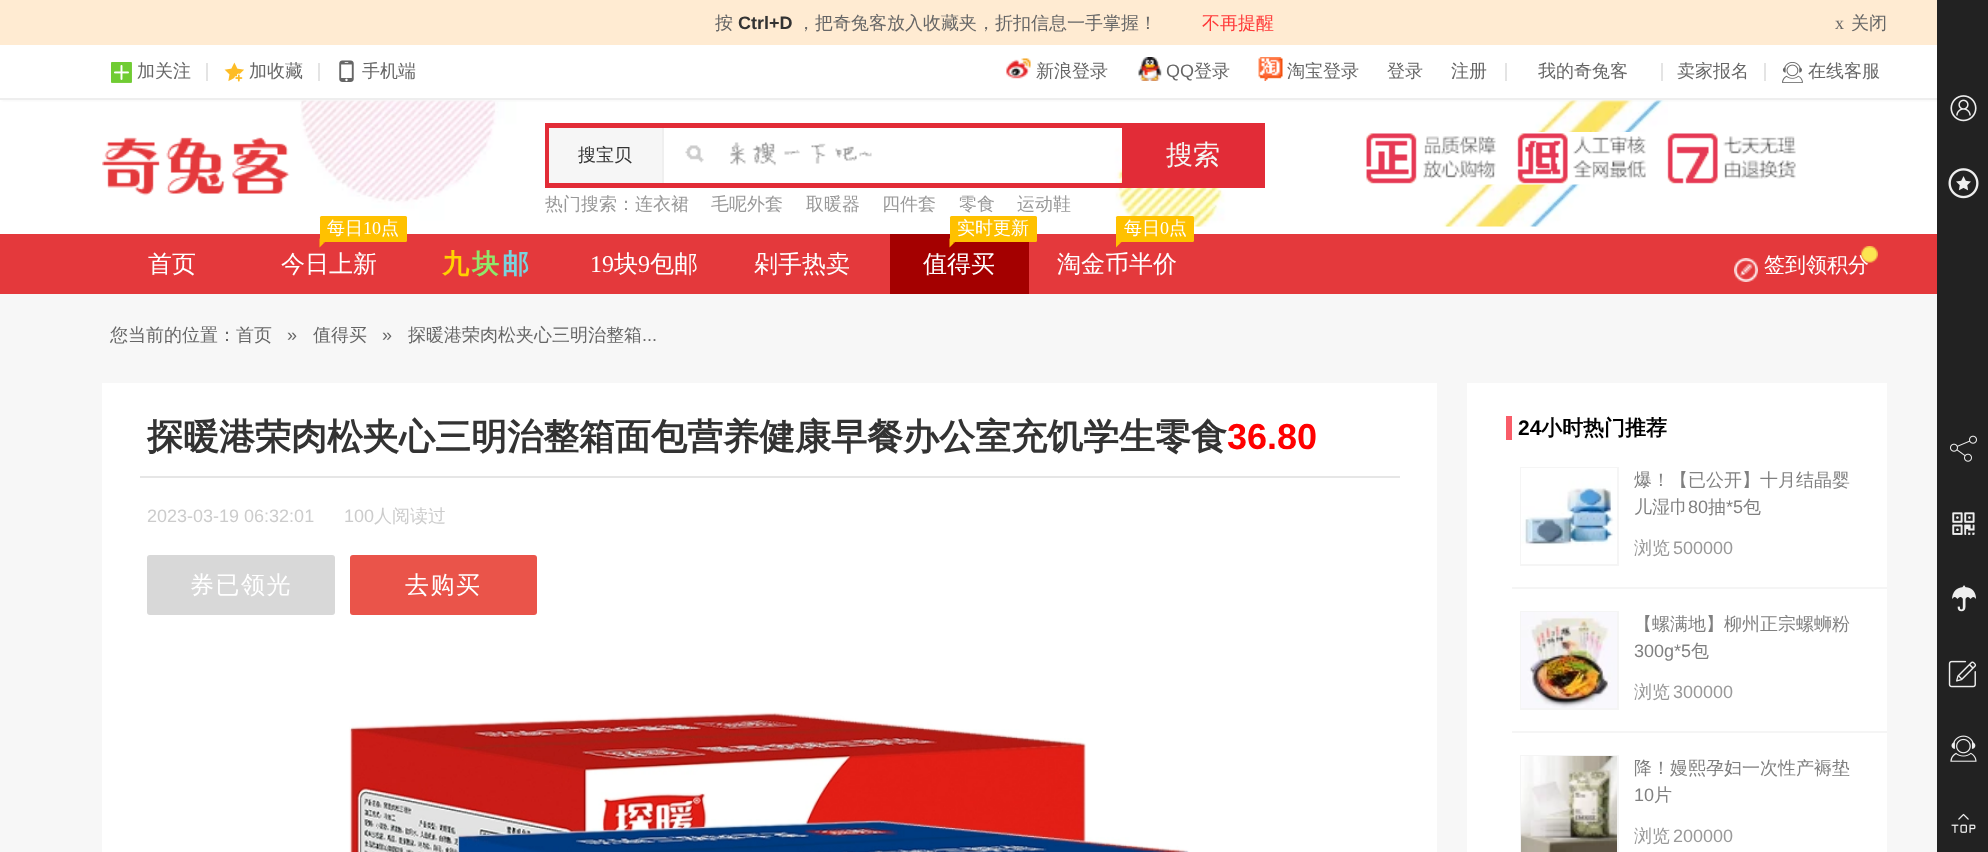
<svg xmlns="http://www.w3.org/2000/svg" width="1988" height="852">
<defs>
<clipPath id="clip1"><rect x="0" y="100" width="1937" height="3"/></clipPath>
</defs>
<rect width="100%" height="100%" fill="#fff"/>
<rect width="1937" height="45" fill="#ffebd2"/>
<text x="715" y="29" style="font-family:WenQuanYi Zen Hei;font-size:18px;font-weight:500;fill:#666">按</text>
<text x="738" y="29" style="font-family:Liberation Sans;font-size:18px;font-weight:bold;fill:#333">Ctrl+D</text>
<text x="797" y="29" style="font-family:WenQuanYi Zen Hei;font-size:18px;font-weight:500;fill:#666">，把奇兔客放入收藏夹，折扣信息一手掌握！</text>
<text x="1202" y="29" style="font-family:WenQuanYi Zen Hei;font-size:18px;font-weight:500;fill:#ff3838">不再提醒</text>
<text x="1835" y="29" style="font-family:Liberation Serif;font-size:18px;fill:#666">x</text>
<text x="1851" y="29" style="font-family:WenQuanYi Zen Hei;font-size:18px;font-weight:500;fill:#666">关闭</text>
<image x="300" y="100" width="1368" height="127" href="media/8.png"/>
<g clip-path="url(#clip1)">
<rect x="2" y="47" width="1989" height="54" fill="#f7f7f7" filter="blur(1px)"/>
</g>
<rect y="98" width="1937" height="2" fill="#eee"/>
<image x="111" y="62" width="21" height="21" href="media/1.png"/>
<text x="137" y="77" style="font-family:WenQuanYi Zen Hei;font-size:18px;font-weight:500;fill:#666">加关注</text>
<rect x="206" y="63" width="2" height="18" fill="#e4e4e4"/>
<image x="224" y="62" width="20" height="20" href="media/2.png"/>
<text x="249" y="77" style="font-family:WenQuanYi Zen Hei;font-size:18px;font-weight:500;fill:#666">加收藏</text>
<rect x="318" y="63" width="2" height="18" fill="#e4e4e4"/>
<image x="339" y="60" width="15" height="22" href="media/3.png"/>
<text x="362" y="77" style="font-family:WenQuanYi Zen Hei;font-size:18px;font-weight:500;fill:#666">手机端</text>
<image x="1006" y="58" width="25" height="21" href="media/4.png"/>
<text x="1036" y="77" style="font-family:WenQuanYi Zen Hei;font-size:18px;font-weight:500;fill:#666">新浪登录</text>
<image x="1138" y="57" width="24" height="24" href="media/5.png"/>
<text x="1166" y="77" style="font-family:Liberation Sans;font-size:18px;fill:#666">QQ</text>
<text x="1194" y="77" style="font-family:WenQuanYi Zen Hei;font-size:18px;font-weight:500;fill:#666">登录</text>
<image x="1258" y="57" width="25" height="24" href="media/6.png"/>
<text x="1287" y="77" style="font-family:WenQuanYi Zen Hei;font-size:18px;font-weight:500;fill:#666">淘宝登录</text>
<text x="1387" y="77" style="font-family:WenQuanYi Zen Hei;font-size:18px;font-weight:500;fill:#666">登录</text>
<text x="1451" y="77" style="font-family:WenQuanYi Zen Hei;font-size:18px;font-weight:500;fill:#666">注册</text>
<rect x="1505" y="63" width="2" height="18" fill="#e4e4e4"/>
<text x="1538" y="77" style="font-family:WenQuanYi Zen Hei;font-size:18px;font-weight:500;fill:#666">我的奇兔客</text>
<rect x="1661" y="63" width="2" height="18" fill="#e4e4e4"/>
<text x="1677" y="77" style="font-family:WenQuanYi Zen Hei;font-size:18px;font-weight:500;fill:#666">卖家报名</text>
<rect x="1764" y="63" width="2" height="18" fill="#e4e4e4"/>
<image x="1782" y="62" width="21" height="21" href="media/7.png"/>
<text x="1808" y="77" style="font-family:WenQuanYi Zen Hei;font-size:18px;font-weight:500;fill:#666">在线客服</text>
<image x="102" y="137" width="188" height="59" href="media/9.png"/>
<rect x="545" y="123" width="577" height="5" fill="#e22c37"/>
<rect x="545" y="183" width="577" height="5" fill="#e22c37"/>
<rect x="545" y="123" width="5" height="65" fill="#e22c37"/>
<rect x="549" y="128" width="113" height="55" fill="#f6f6f6"/>
<rect x="662" y="128" width="2" height="55" fill="#efefef"/>
<text x="578" y="161" style="font-family:WenQuanYi Zen Hei;font-size:18px;font-weight:500;fill:#333">搜宝贝</text>
<image x="685" y="142" width="187" height="24" href="media/10.png"/>
<rect x="1122" y="123" width="143" height="65" fill="#e22c37"/>
<text x="1166" y="164" style="font-family:WenQuanYi Zen Hei;font-size:27px;font-weight:500;fill:#f5f5f2">搜索</text>
<text x="545" y="210" style="font-family:WenQuanYi Zen Hei;font-size:18px;font-weight:500;fill:#999">热门搜索：连衣裙</text>
<text x="711" y="210" style="font-family:WenQuanYi Zen Hei;font-size:18px;font-weight:500;fill:#999">毛呢外套</text>
<text x="806" y="210" style="font-family:WenQuanYi Zen Hei;font-size:18px;font-weight:500;fill:#999">取暖器</text>
<text x="882" y="210" style="font-family:WenQuanYi Zen Hei;font-size:18px;font-weight:500;fill:#999">四件套</text>
<text x="959" y="210" style="font-family:WenQuanYi Zen Hei;font-size:18px;font-weight:500;fill:#999">零食</text>
<text x="1017" y="210" style="font-family:WenQuanYi Zen Hei;font-size:18px;font-weight:500;fill:#999">运动鞋</text>
<image x="1366" y="132" width="430" height="53" href="media/11.png"/>
<rect y="234" width="1937" height="60" fill="#e4393c"/>
<text x="148" y="272" style="font-family:WenQuanYi Zen Hei;font-size:24px;font-weight:500;fill:#fff">首页</text>
<rect x="320" y="216" width="87" height="26" rx="1.5" fill="#ffc100"/>
<text x="327" y="234" style="font-family:WenQuanYi Zen Hei;font-size:18px;font-weight:500;fill:#fff">每日</text>
<text x="363" y="234" style="font-family:Liberation Serif;font-size:18px;fill:#fff">10</text>
<text x="381" y="234" style="font-family:WenQuanYi Zen Hei;font-size:18px;font-weight:500;fill:#fff">点</text>
<path d="M319.5 238.5h9l-4.5 4.5z" fill="#ffc100"/>
<path d="M319.5 247.5v-9l4.5 4.5z" fill="#ffc100"/>
<text x="281" y="272" style="font-family:WenQuanYi Zen Hei;font-size:24px;font-weight:500;fill:#fff">今日上新</text>
<text x="442" y="273" style="font-family:WenQuanYi Zen Hei;font-size:27px;font-weight:bold;letter-spacing:3px;fill:#ffd200">九</text>
<text x="472" y="273" style="font-family:WenQuanYi Zen Hei;font-size:27px;font-weight:bold;letter-spacing:3px;fill:#8fe86b">块</text>
<text x="502" y="273" style="font-family:WenQuanYi Zen Hei;font-size:27px;font-weight:bold;letter-spacing:3px;fill:#79d3de">邮</text>
<text x="590" y="272" style="font-family:Liberation Serif;font-size:24px;fill:#fff">19</text>
<text x="614" y="272" style="font-family:WenQuanYi Zen Hei;font-size:24px;font-weight:500;fill:#fff">块</text>
<text x="638" y="272" style="font-family:Liberation Serif;font-size:24px;fill:#fff">9</text>
<text x="650" y="272" style="font-family:WenQuanYi Zen Hei;font-size:24px;font-weight:500;fill:#fff">包邮</text>
<text x="754" y="272" style="font-family:WenQuanYi Zen Hei;font-size:24px;font-weight:500;fill:#fff">剁手热卖</text>
<rect x="890" y="234" width="139" height="60" fill="#a40000"/>
<rect x="950" y="216" width="87" height="26" rx="1.5" fill="#ffc100"/>
<text x="957" y="234" style="font-family:WenQuanYi Zen Hei;font-size:18px;font-weight:500;fill:#fff">实时更新</text>
<path d="M949.5 238.5h9l-4.5 4.5z" fill="#ffc100"/>
<path d="M949.5 247.5v-9l4.5 4.5z" fill="#ffc100"/>
<text x="923" y="272" style="font-family:WenQuanYi Zen Hei;font-size:24px;font-weight:500;fill:#fff">值得买</text>
<rect x="1116" y="216" width="78" height="26" rx="1.5" fill="#ffc100"/>
<text x="1124" y="234" style="font-family:WenQuanYi Zen Hei;font-size:18px;font-weight:500;fill:#fff">每日</text>
<text x="1160" y="234" style="font-family:Liberation Serif;font-size:18px;fill:#fff">0</text>
<text x="1169" y="234" style="font-family:WenQuanYi Zen Hei;font-size:18px;font-weight:500;fill:#fff">点</text>
<path d="M1116 238.5h9l-4.5 4.5z" fill="#ffc100"/>
<path d="M1116 247.5v-9l4.5 4.5z" fill="#ffc100"/>
<text x="1057" y="272" style="font-family:WenQuanYi Zen Hei;font-size:24px;font-weight:500;fill:#fff">淘金币半价</text>
<image x="1734" y="258" width="24" height="24" href="media/12.png"/>
<text x="1764" y="272" style="font-family:WenQuanYi Zen Hei;font-size:21px;font-weight:500;fill:#fff">签到领积分</text>
<image x="1861" y="246" width="17" height="17" href="media/13.png"/>
<rect y="294" width="1937" height="558" fill="#f7f7f7"/>
<text x="110" y="341" style="font-family:WenQuanYi Zen Hei;font-size:18px;font-weight:500;fill:#666">您当前的位置：首页</text>
<text x="287" y="341" style="font-family:Liberation Sans;font-size:18px;fill:#666">»</text>
<text x="313" y="341" style="font-family:WenQuanYi Zen Hei;font-size:18px;font-weight:500;fill:#666">值得买</text>
<text x="382" y="341" style="font-family:Liberation Sans;font-size:18px;fill:#666">»</text>
<text x="408" y="341" style="font-family:WenQuanYi Zen Hei;font-size:18px;font-weight:500;fill:#666">探暖港荣肉松夹心三明治整箱</text>
<text x="642" y="341" style="font-family:Liberation Sans;font-size:18px;fill:#666">...</text>
<rect x="102" y="383" width="1335" height="469" fill="#fff"/>
<rect x="140" y="476" width="1260" height="2" fill="#e6e6e6"/>
<text x="147" y="449" style="font-family:WenQuanYi Zen Hei;font-size:36px;font-weight:bold;fill:#333">探暖港荣肉松夹心三明治整箱面包营养健康早餐办公室充饥学生零食</text>
<text x="1227" y="449" style="font-family:Liberation Sans;font-size:36px;font-weight:bold;fill:#f00">36.80</text>
<text x="147" y="522" style="font-family:Liberation Sans;font-size:18px;fill:#ccc">2023-03-19 06:32:01</text>
<text x="344" y="522" style="font-family:Liberation Sans;font-size:18px;fill:#ccc">100</text>
<text x="374" y="522" style="font-family:WenQuanYi Zen Hei;font-size:18px;font-weight:500;fill:#ccc">人阅读过</text>
<rect x="147" y="555" width="188" height="60" rx="3" fill="#d8d8d8"/>
<text x="190" y="593" style="font-family:WenQuanYi Zen Hei;font-size:24px;font-weight:500;letter-spacing:1.5px;fill:#fff">券已领光</text>
<rect x="350" y="555" width="187" height="60" rx="3" fill="#ea544a"/>
<text x="405" y="593" style="font-family:WenQuanYi Zen Hei;font-size:24px;font-weight:500;letter-spacing:1.5px;fill:#fff">去购买</text>
<image x="349" y="712" width="840" height="140" href="media/14.png"/>
<rect x="1467" y="383" width="420" height="469" fill="#fff"/>
<rect x="1506" y="416" width="6" height="24" fill="#f95c68"/>
<text x="1518" y="435" style="font-family:Liberation Sans;font-size:21px;font-weight:bold;fill:#000">24</text>
<text x="1541" y="435" style="font-family:WenQuanYi Zen Hei;font-size:21px;font-weight:bold;fill:#000">小时热门推荐</text>
<rect x="1512" y="587" width="375" height="2" fill="#f5f5f5"/>
<rect x="1521" y="468" width="97" height="97" fill="none" stroke="#f5f5f5" stroke-width="2"/>
<image x="1521" y="468" width="96" height="96" href="media/15.png"/>
<text x="1634" y="486" style="font-family:WenQuanYi Zen Hei;font-size:18px;font-weight:500;fill:#808080">爆！【已公开】十月结晶婴</text>
<text x="1634" y="513" style="font-family:WenQuanYi Zen Hei;font-size:18px;font-weight:500;fill:#808080">儿湿巾</text>
<text x="1688" y="513" style="font-family:Liberation Sans;font-size:18px;fill:#808080">80</text>
<text x="1708" y="513" style="font-family:WenQuanYi Zen Hei;font-size:18px;font-weight:500;fill:#808080">抽</text>
<text x="1726" y="513" style="font-family:Liberation Sans;font-size:18px;fill:#808080">*5</text>
<text x="1743" y="513" style="font-family:WenQuanYi Zen Hei;font-size:18px;font-weight:500;fill:#808080">包</text>
<text x="1634" y="554" style="font-family:WenQuanYi Zen Hei;font-size:18px;font-weight:500;fill:#999">浏览</text>
<text x="1673" y="554" style="font-family:Liberation Sans;font-size:18px;fill:#999">500000</text>
<rect x="1512" y="731" width="375" height="2" fill="#f5f5f5"/>
<rect x="1521" y="612" width="97" height="97" fill="none" stroke="#f5f5f5" stroke-width="2"/>
<image x="1521" y="612" width="96" height="96" href="media/16.png"/>
<text x="1634" y="630" style="font-family:WenQuanYi Zen Hei;font-size:18px;font-weight:500;fill:#808080">【螺满地】柳州正宗螺蛳粉</text>
<text x="1634" y="657" style="font-family:Liberation Sans;font-size:18px;fill:#808080">300g*5</text>
<text x="1691" y="657" style="font-family:WenQuanYi Zen Hei;font-size:18px;font-weight:500;fill:#808080">包</text>
<text x="1634" y="698" style="font-family:WenQuanYi Zen Hei;font-size:18px;font-weight:500;fill:#999">浏览</text>
<text x="1673" y="698" style="font-family:Liberation Sans;font-size:18px;fill:#999">300000</text>
<rect x="1521" y="756" width="97" height="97" fill="none" stroke="#f5f5f5" stroke-width="2"/>
<image x="1521" y="756" width="96" height="96" href="media/17.png"/>
<text x="1634" y="774" style="font-family:WenQuanYi Zen Hei;font-size:18px;font-weight:500;fill:#808080">降！嫚熙孕妇一次性产褥垫</text>
<text x="1634" y="801" style="font-family:Liberation Sans;font-size:18px;fill:#808080">10</text>
<text x="1654" y="801" style="font-family:WenQuanYi Zen Hei;font-size:18px;font-weight:500;fill:#808080">片</text>
<text x="1634" y="842" style="font-family:WenQuanYi Zen Hei;font-size:18px;font-weight:500;fill:#999">浏览</text>
<text x="1673" y="842" style="font-family:Liberation Sans;font-size:18px;fill:#999">200000</text>
<rect x="1937" width="51" height="852" fill="#222"/>
<image x="1950" y="95" width="27" height="27" href="media/18.png"/>
<image x="1948" y="168" width="31" height="31" href="media/19.png"/>
<image x="1950" y="435" width="27" height="27" href="media/20.png"/>
<image x="1952" y="512" width="23" height="23" href="media/21.png"/>
<image x="1952" y="585" width="24" height="27" href="media/22.png"/>
<image x="1948" y="660" width="29" height="28" href="media/23.png"/>
<image x="1950" y="735" width="27" height="27" href="media/24.png"/>
<image x="1951" y="813" width="25" height="20" href="media/25.png"/>
</svg>
